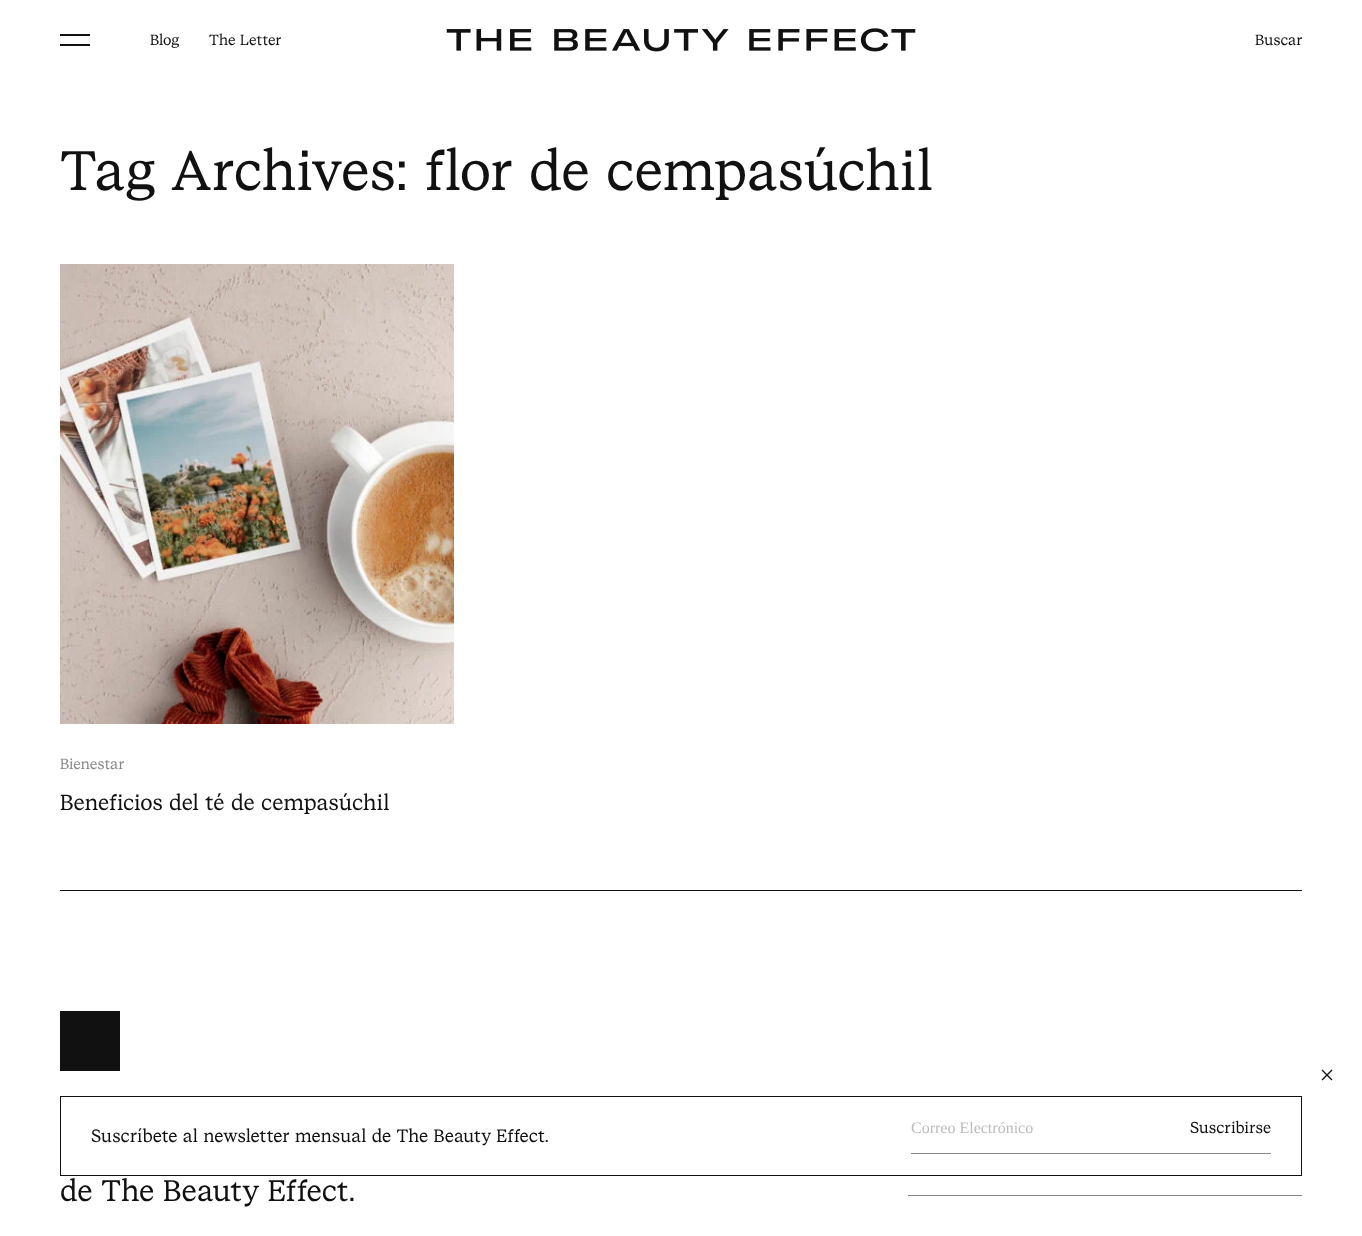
<svg xmlns="http://www.w3.org/2000/svg" width="1362" height="1236">
<rect width="100%" height="100%" fill="#fff"/>
<rect x="60" y="34" width="30" height="2" fill="#111"/>
<rect x="60" y="44" width="30" height="2" fill="#111"/>
<text x="150" y="45" style="font-family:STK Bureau;font-size:15px;fill:#111">Blog</text>
<text x="209" y="45" style="font-family:STK Bureau;font-size:15px;fill:#111">The Letter</text>
<image x="446" y="28" width="470" height="24" href="media/1.png"/>
<text x="1255" y="45" style="font-family:STK Bureau;font-size:15px;fill:#111">Buscar</text>
<rect x="60" y="890" width="1242" height="1" fill="#111"/>
<text x="60" y="190" style="font-family:STK Bureau;font-size:56px;fill:#111">Tag Archives: flor de cempasúchil</text>
<image x="60" y="264" width="394" height="460" href="media/2.png"/>
<text x="60" y="769" style="font-family:STK Bureau;font-size:15px;fill:#888">Bienestar</text>
<text x="60" y="810" style="font-family:STK Bureau;font-size:22px;fill:#111">Beneficios del té de cempasúchil</text>
<rect x="60.5" y="1096.5" width="1241" height="79" fill="none" stroke="#111"/>
<path d="M1322 1070l10 10m0-10l-10 10" fill="none" stroke="#111" stroke-width="1.4"/>
<text x="91" y="1142" style="font-family:STK Bureau;font-size:18px;fill:#111">Suscríbete al newsletter mensual de The Beauty Effect.</text>
<rect x="911" y="1153" width="360" height="1" fill="#888"/>
<text x="911" y="1133" style="font-family:Liberation Serif;font-size:16px;fill:#bbb">Correo Electrónico</text>
<text x="1190" y="1133" style="font-family:STK Bureau;font-size:16px;fill:#111">Suscribirse</text>
<rect x="60" y="1011" width="60" height="60" fill="#111"/>
<text x="60" y="1201" style="font-family:STK Bureau;font-size:30px;fill:#111">de The Beauty Effect.</text>
<rect x="908" y="1195" width="394" height="1" fill="#888"/>
</svg>
